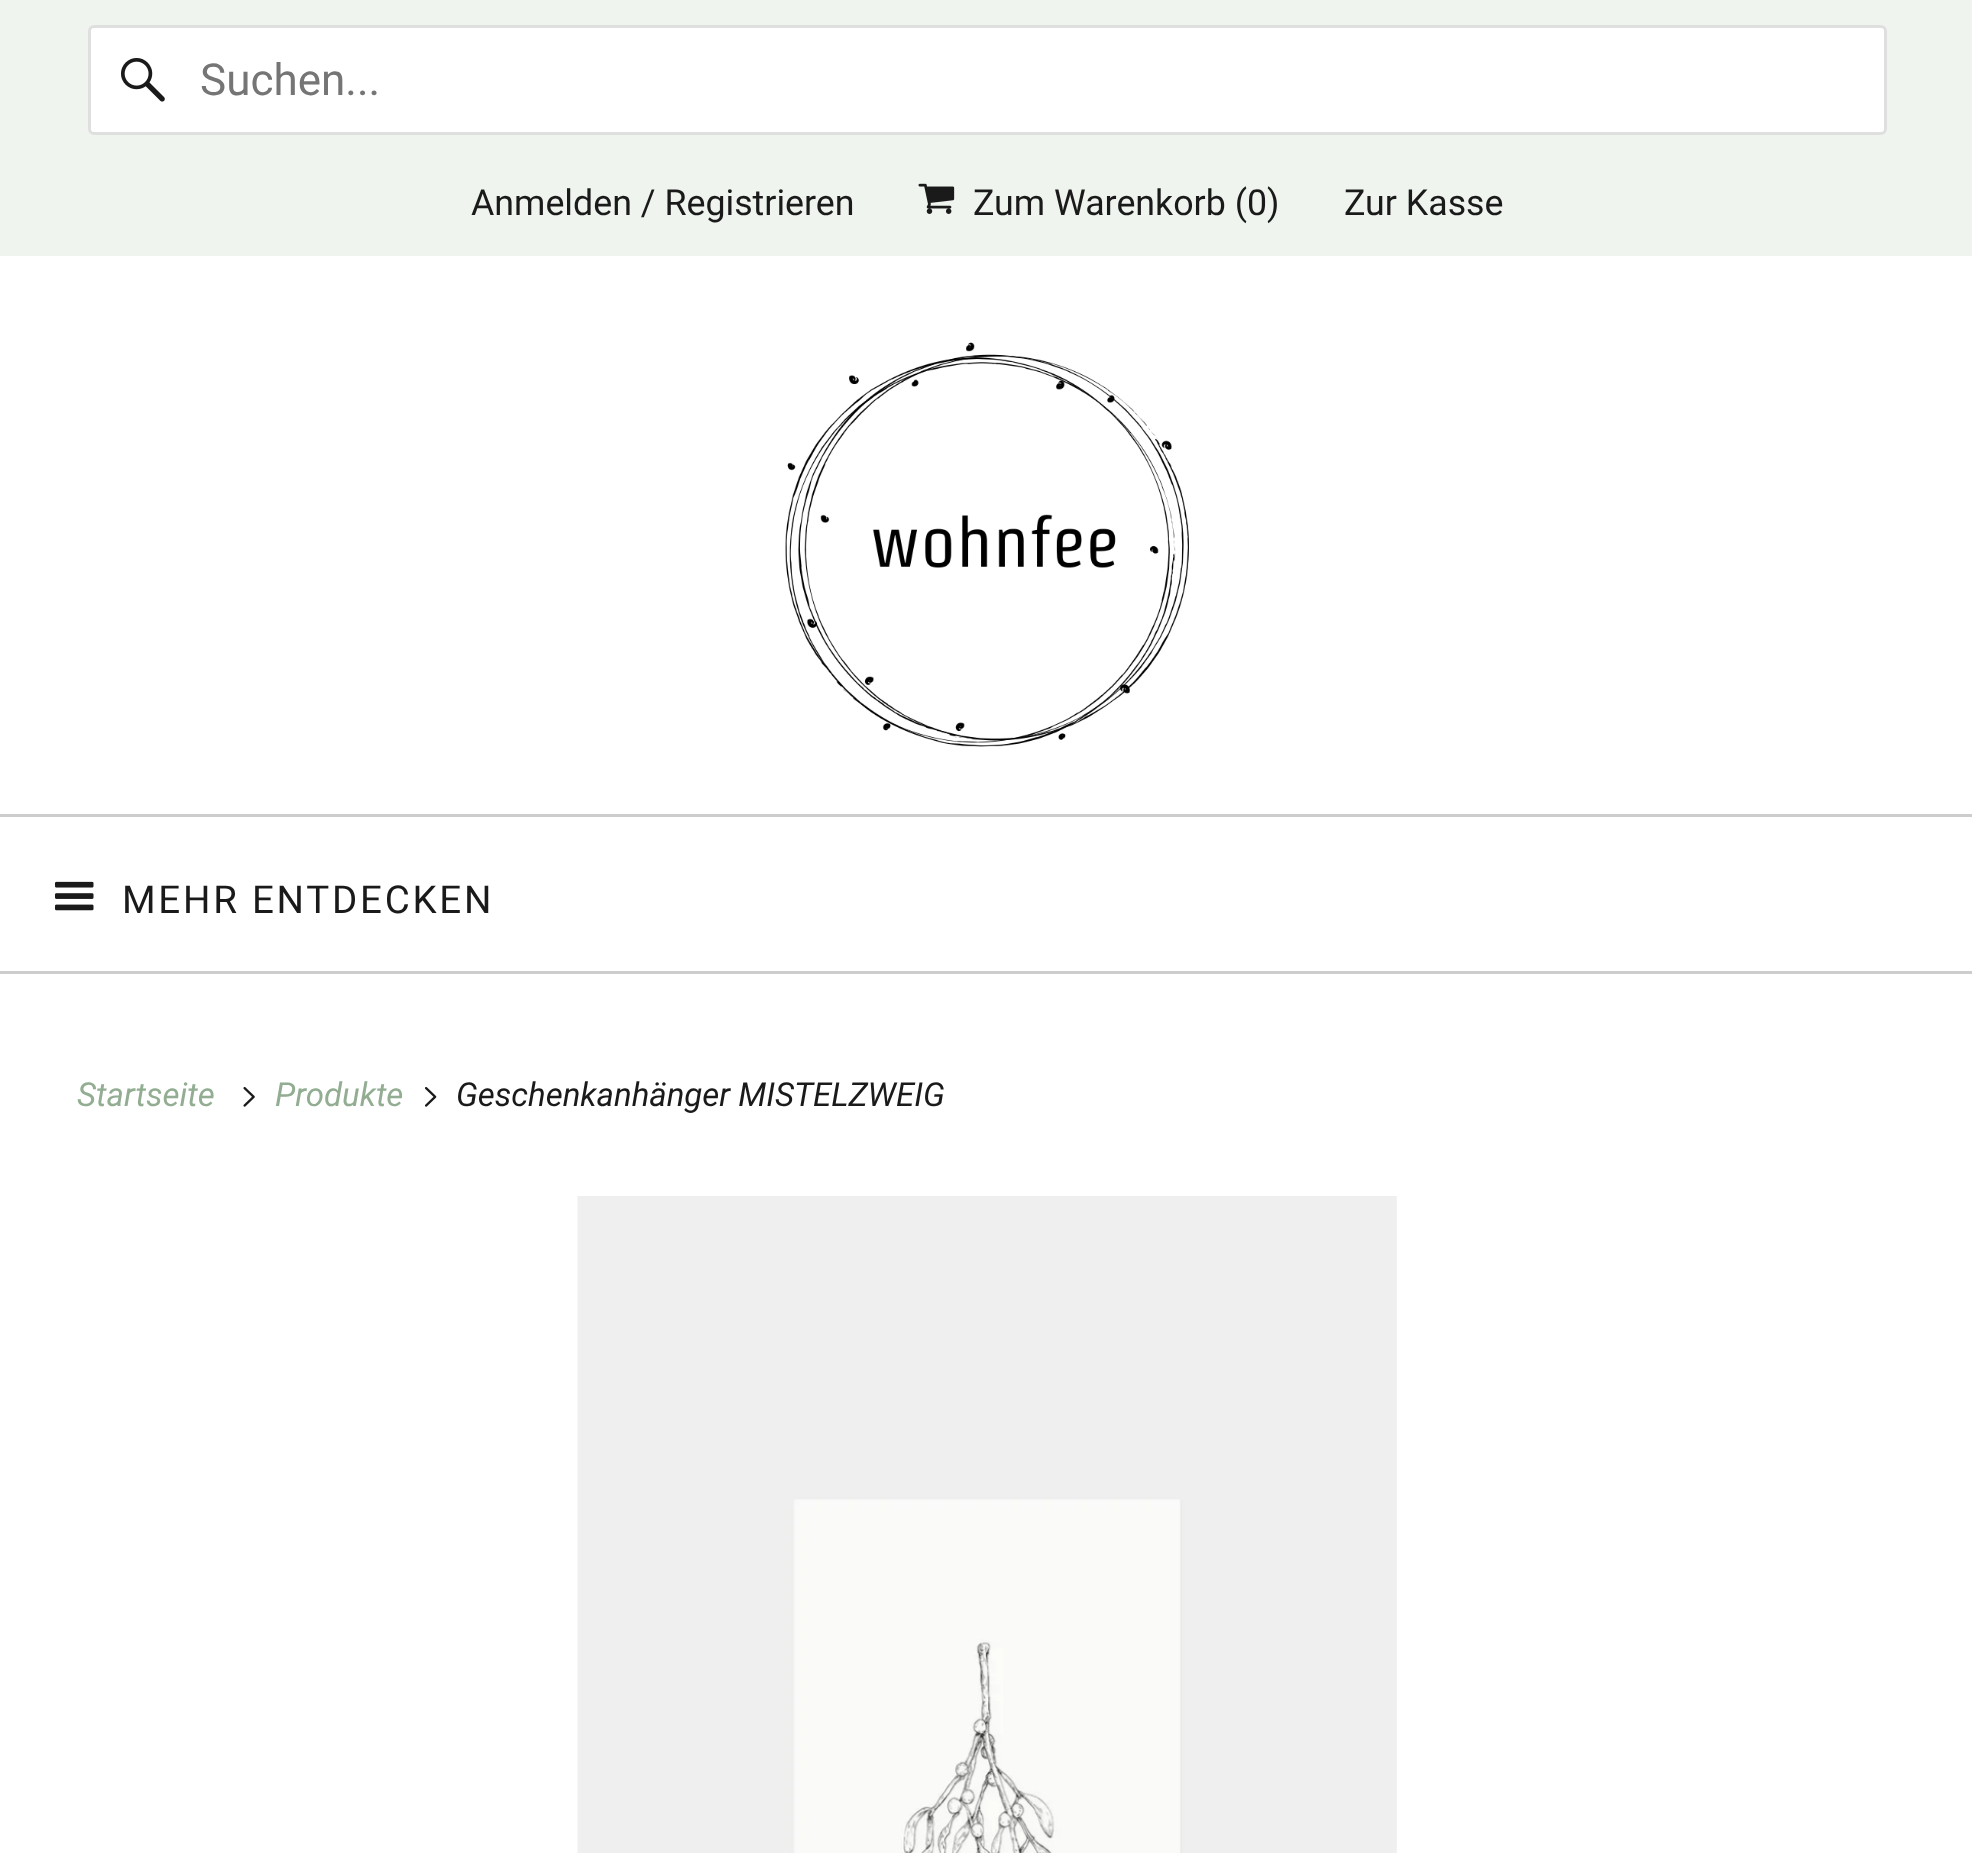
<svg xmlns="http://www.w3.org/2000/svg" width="1972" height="1853">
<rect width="100%" height="100%" fill="#fff"/>
<rect width="1972" height="256" fill="#eff4ef"/>
<rect x="89.5" y="26.5" width="1796" height="107" rx="4.5" fill="#fff" stroke="#dfdfdf" stroke-width="3"/>
<image x="121" y="58" width="44" height="44" href="media/1.png"/>
<text x="200" y="95" style="font-family:Roboto;font-size:44px;fill:#757575">Suchen...</text>
<text x="471" y="215" style="font-family:Roboto;font-size:35.75px;fill:#1a1a1a">Anmelden / Registrieren</text>
<image x="918" y="183" width="37" height="31" href="media/2.png"/>
<text x="973" y="215" style="font-family:Roboto;font-size:35.75px;fill:#1a1a1a">Zum Warenkorb (0)</text>
<text x="1344" y="215" style="font-family:Roboto;font-size:35.75px;fill:#1a1a1a">Zur Kasse</text>
<image x="785" y="342" width="404" height="405" href="media/3.png"/>
<rect y="814" width="1972" height="3" fill="#cdcdcd"/>
<rect y="971" width="1972" height="3" fill="#cdcdcd"/>
<image x="55" y="881" width="39" height="30" href="media/4.png"/>
<text x="122" y="913" style="font-family:Roboto;font-size:38.5px;letter-spacing:2.75px;fill:#1a1a1a">MEHR ENTDECKEN</text>
<text x="77" y="1106" style="font-family:Roboto;font-size:33px;font-style:italic;fill:#92ad92">Startseite</text>
<image x="243" y="1087" width="12" height="20" href="media/5.png"/>
<text x="275" y="1106" style="font-family:Roboto;font-size:33px;font-style:italic;fill:#92ad92">Produkte</text>
<image x="425" y="1087" width="12" height="20" href="media/6.png"/>
<text x="456" y="1106" style="font-family:Roboto;font-size:33px;font-style:italic;fill:#1a1a1a">Geschenkanhänger MISTELZWEIG</text>
<image x="577" y="1196" width="820" height="657" href="media/7.png"/>
</svg>
